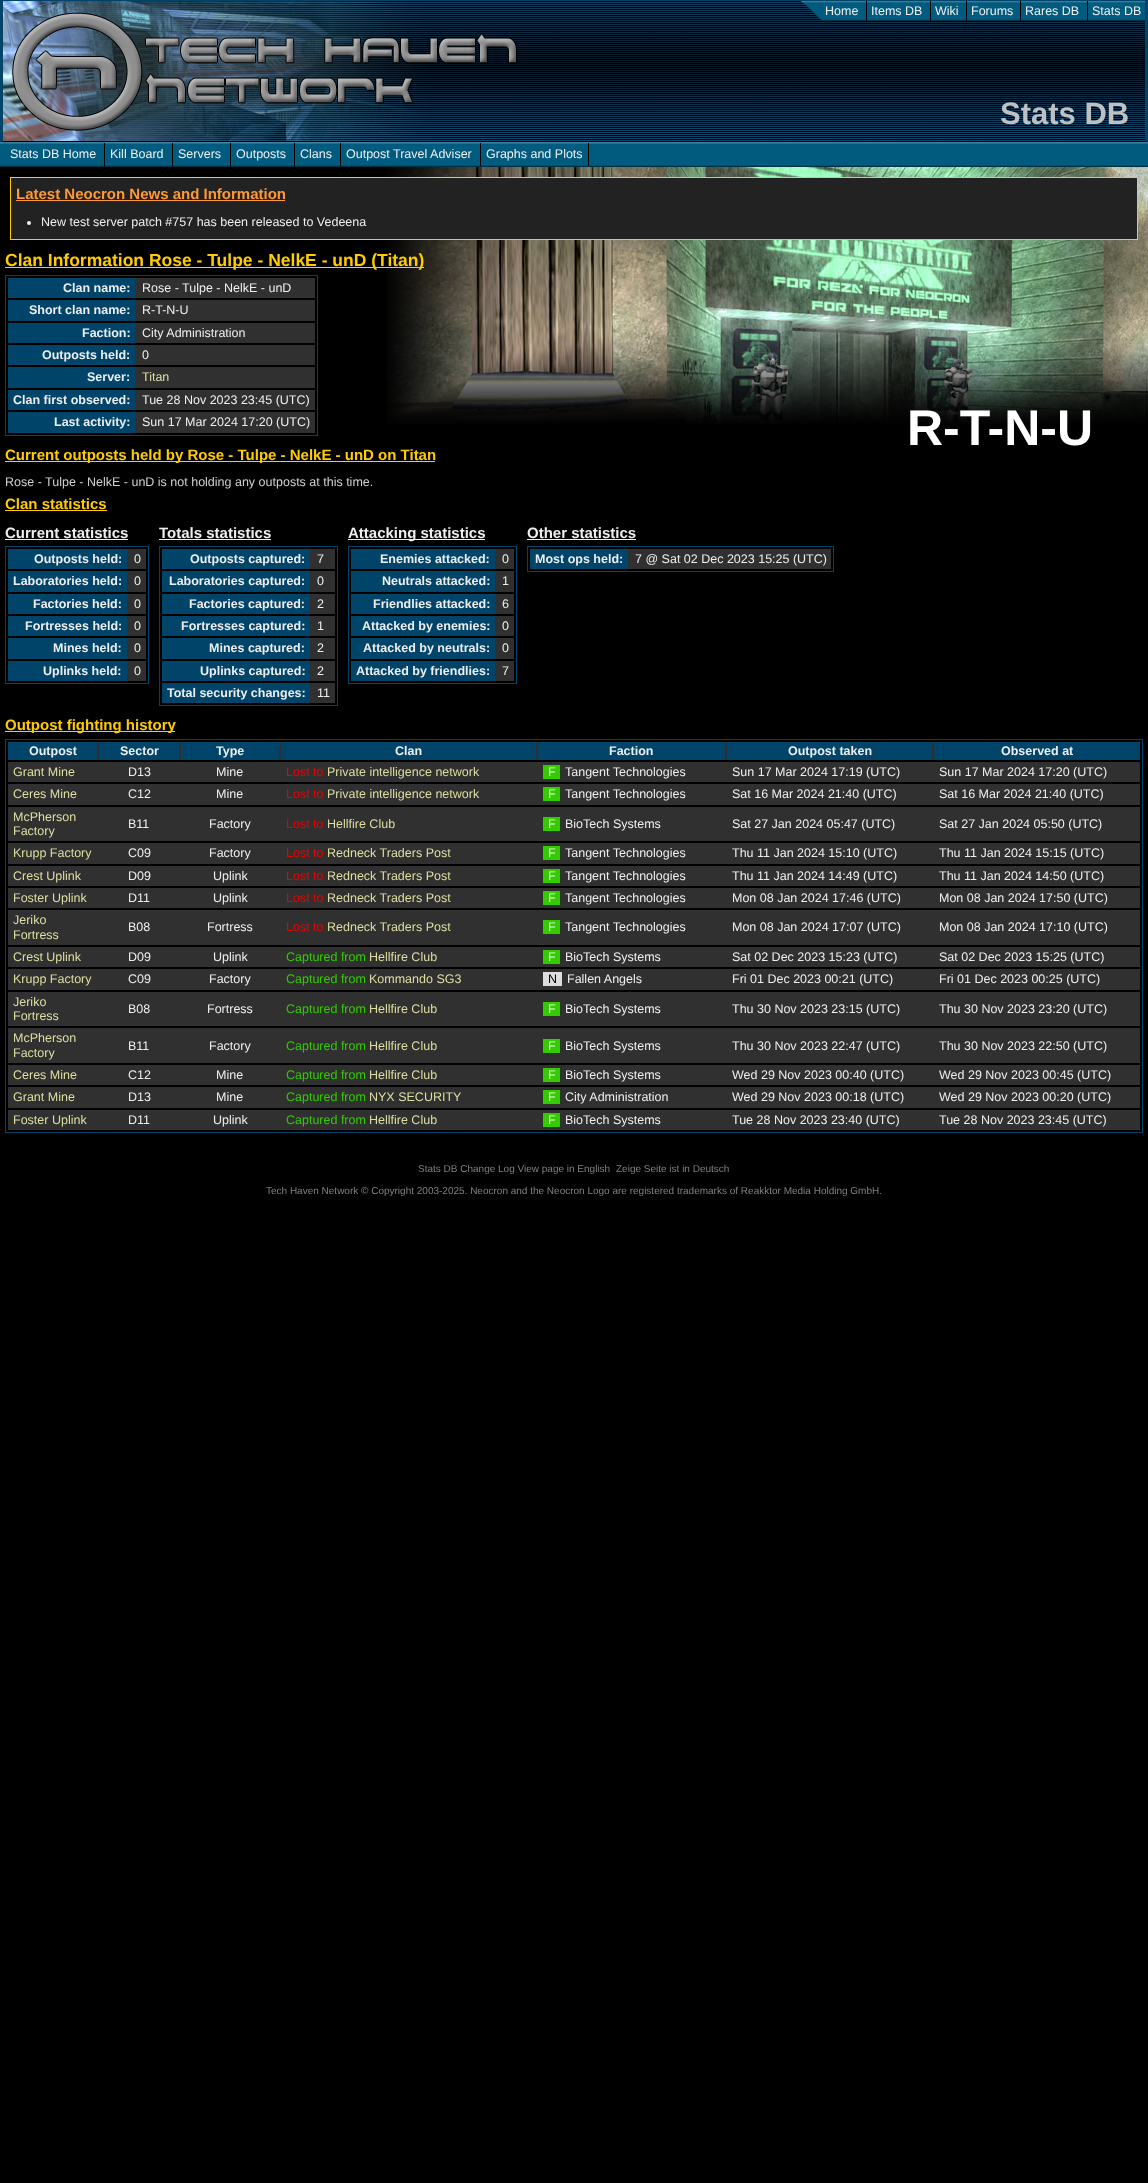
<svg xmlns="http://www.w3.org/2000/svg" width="1148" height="2183">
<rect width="100%" height="100%" fill="#000"/>
<image x="386" y="167" width="762" height="257" href="media/1.png"/>
<image x="3" y="1" width="1142" height="140" href="media/2.png"/>
<rect width="1148" height="1" fill="#00446a"/>
<path d="M1148 0v142l-3-1v-140z" fill="#00446a"/>
<path d="M1148 142h-1148l3-1h1142z" fill="#000"/>
<path d="M0 142v-142l3 1v140z" fill="#00446a"/>
<image x="800" y="1" width="345" height="20" href="media/3.png"/>
<text x="825" y="15" style="font-family:Liberation Sans;font-size:12.5px;fill:#eee">Home</text>
<text x="871" y="15" style="font-family:Liberation Sans;font-size:12.5px;fill:#eee">Items DB</text>
<rect x="866" y="1" width="1" height="20" fill="#000"/>
<text x="935" y="15" style="font-family:Liberation Sans;font-size:12.5px;fill:#eee">Wiki</text>
<rect x="930" y="1" width="1" height="20" fill="#000"/>
<text x="971" y="15" style="font-family:Liberation Sans;font-size:12.5px;fill:#eee">Forums</text>
<rect x="966" y="1" width="1" height="20" fill="#000"/>
<text x="1025" y="15" style="font-family:Liberation Sans;font-size:12.5px;fill:#eee">Rares DB</text>
<rect x="1020" y="1" width="1" height="20" fill="#000"/>
<text x="1092" y="15" style="font-family:Liberation Sans;font-size:12.5px;fill:#eee">Stats DB</text>
<rect x="1087" y="1" width="1" height="20" fill="#000"/>
<text x="1000" y="124" style="font-family:Liberation Sans;font-size:31px;font-weight:bold;fill:#c0c0c0">Stats DB</text>
<image x="0" y="142" width="1148" height="25" href="media/4.png"/>
<text x="10" y="158" style="font-family:Liberation Sans;font-size:12.5px;fill:#eee">Stats DB Home</text>
<text x="110" y="158" style="font-family:Liberation Sans;font-size:12.5px;fill:#eee">Kill Board</text>
<rect x="104" y="143" width="1" height="23" fill="#000"/>
<text x="178" y="158" style="font-family:Liberation Sans;font-size:12.5px;fill:#eee">Servers</text>
<rect x="172" y="143" width="1" height="23" fill="#000"/>
<text x="236" y="158" style="font-family:Liberation Sans;font-size:12.5px;fill:#eee">Outposts</text>
<rect x="230" y="143" width="1" height="23" fill="#000"/>
<text x="300" y="158" style="font-family:Liberation Sans;font-size:12.5px;fill:#eee">Clans</text>
<rect x="294" y="143" width="1" height="23" fill="#000"/>
<text x="346" y="158" style="font-family:Liberation Sans;font-size:12.5px;fill:#eee">Outpost Travel Adviser</text>
<rect x="340" y="143" width="1" height="23" fill="#000"/>
<text x="486" y="158" style="font-family:Liberation Sans;font-size:12.5px;fill:#eee">Graphs and Plots</text>
<rect x="588" y="143" width="1" height="23" fill="#000"/>
<rect x="480" y="143" width="1" height="23" fill="#000"/>
<rect x="10.5" y="177.5" width="1127" height="62" fill="#222" stroke="#ffcc01"/>
<text x="16" y="199" style="font-family:Liberation Sans;font-size:15px;font-weight:bold;fill:#f93">Latest Neocron News and Information</text>
<rect x="16" y="200" width="269" height="1" fill="#f93"/>
<circle cx="29" cy="223" r="2" fill="#eee"/>
<text x="41" y="226" style="font-family:Liberation Sans;font-size:12.5px;fill:#eee">New test server patch #757 has been released to Vedeena</text>
<rect x="5" y="267" width="419" height="1" fill="#ffcc01"/>
<text x="5" y="266" style="font-family:Liberation Sans;font-size:17.5px;font-weight:bold;fill:#ffcc01">Clan Information Rose - Tulpe - NelkE - unD (Titan)</text>
<rect x="5.5" y="275.5" width="312" height="160" fill="none" stroke="#00446a"/>
<rect x="135" y="278" width="180" height="20" fill="#303030"/>
<rect x="8" y="278" width="127" height="20" fill="#00446a"/>
<text x="63" y="292" style="font-family:Liberation Sans;font-size:12.5px;font-weight:bold;fill:#eee">Clan name:</text>
<text x="142" y="292" style="font-family:Liberation Sans;font-size:12.5px;fill:#eee">Rose - Tulpe - NelkE - unD</text>
<rect x="135" y="300" width="180" height="21" fill="#303030"/>
<rect x="8" y="300" width="127" height="21" fill="#00446a"/>
<text x="29" y="314" style="font-family:Liberation Sans;font-size:12.5px;font-weight:bold;fill:#eee">Short clan name:</text>
<text x="142" y="314" style="font-family:Liberation Sans;font-size:12.5px;fill:#eee">R-T-N-U</text>
<rect x="135" y="323" width="180" height="20" fill="#303030"/>
<rect x="8" y="323" width="127" height="20" fill="#00446a"/>
<text x="82" y="337" style="font-family:Liberation Sans;font-size:12.5px;font-weight:bold;fill:#eee">Faction:</text>
<text x="142" y="337" style="font-family:Liberation Sans;font-size:12.5px;fill:#eee">City Administration</text>
<rect x="135" y="345" width="180" height="20" fill="#303030"/>
<rect x="8" y="345" width="127" height="20" fill="#00446a"/>
<text x="42" y="359" style="font-family:Liberation Sans;font-size:12.5px;font-weight:bold;fill:#eee">Outposts held:</text>
<text x="142" y="359" style="font-family:Liberation Sans;font-size:12.5px;fill:#eee">0</text>
<rect x="135" y="367" width="180" height="21" fill="#303030"/>
<rect x="8" y="367" width="127" height="21" fill="#00446a"/>
<text x="87" y="381" style="font-family:Liberation Sans;font-size:12.5px;font-weight:bold;fill:#eee">Server:</text>
<text x="142" y="381" style="font-family:Liberation Sans;font-size:12.5px;fill:#dedea2">Titan</text>
<rect x="135" y="390" width="180" height="20" fill="#303030"/>
<rect x="8" y="390" width="127" height="20" fill="#00446a"/>
<text x="13" y="404" style="font-family:Liberation Sans;font-size:12.5px;font-weight:bold;fill:#eee">Clan first observed:</text>
<text x="142" y="404" style="font-family:Liberation Sans;font-size:12.5px;fill:#eee">Tue 28 Nov 2023 23:45 (UTC)</text>
<rect x="135" y="412" width="180" height="21" fill="#303030"/>
<rect x="8" y="412" width="127" height="21" fill="#00446a"/>
<text x="54" y="426" style="font-family:Liberation Sans;font-size:12.5px;font-weight:bold;fill:#eee">Last activity:</text>
<text x="142" y="426" style="font-family:Liberation Sans;font-size:12.5px;fill:#eee">Sun 17 Mar 2024 17:20 (UTC)</text>
<text x="907" y="445" style="font-family:Liberation Sans;font-size:50px;font-weight:bold;fill:#fff">R-T-N-U</text>
<rect x="5" y="461" width="430" height="1" fill="#ffcc01"/>
<text x="5" y="460" style="font-family:Liberation Sans;font-size:15px;font-weight:bold;fill:#ffcc01">Current outposts held by Rose - Tulpe - NelkE - unD on Titan</text>
<text x="5" y="486" style="font-family:Liberation Sans;font-size:12.5px;fill:#d0d0d0">Rose - Tulpe - NelkE - unD is not holding any outposts at this time.</text>
<text x="5" y="509" style="font-family:Liberation Sans;font-size:15px;font-weight:bold;fill:#ffcc01">Clan statistics</text>
<rect x="5" y="510" width="102" height="1" fill="#ffcc01"/>
<text x="5" y="538" style="font-family:Liberation Sans;font-size:15px;font-weight:bold;fill:#eee">Current statistics</text>
<rect x="5" y="539" width="123" height="1" fill="#eee"/>
<rect x="5.5" y="546.5" width="143" height="137" fill="none" stroke="#00446a"/>
<rect x="127" y="549" width="19" height="20" fill="#303030"/>
<rect x="8" y="549" width="119" height="20" fill="#00446a"/>
<text x="34" y="563" style="font-family:Liberation Sans;font-size:12.5px;font-weight:bold;fill:#eee">Outposts held:</text>
<text x="134" y="563" style="font-family:Liberation Sans;font-size:12.5px;fill:#eee">0</text>
<rect x="127" y="571" width="19" height="21" fill="#303030"/>
<rect x="8" y="571" width="119" height="21" fill="#00446a"/>
<text x="13" y="585" style="font-family:Liberation Sans;font-size:12.5px;font-weight:bold;fill:#eee">Laboratories held:</text>
<text x="134" y="585" style="font-family:Liberation Sans;font-size:12.5px;fill:#eee">0</text>
<rect x="127" y="594" width="19" height="20" fill="#303030"/>
<rect x="8" y="594" width="119" height="20" fill="#00446a"/>
<text x="33" y="608" style="font-family:Liberation Sans;font-size:12.5px;font-weight:bold;fill:#eee">Factories held:</text>
<text x="134" y="608" style="font-family:Liberation Sans;font-size:12.5px;fill:#eee">0</text>
<rect x="127" y="616" width="19" height="20" fill="#303030"/>
<rect x="8" y="616" width="119" height="20" fill="#00446a"/>
<text x="25" y="630" style="font-family:Liberation Sans;font-size:12.5px;font-weight:bold;fill:#eee">Fortresses held:</text>
<text x="134" y="630" style="font-family:Liberation Sans;font-size:12.5px;fill:#eee">0</text>
<rect x="127" y="638" width="19" height="21" fill="#303030"/>
<rect x="8" y="638" width="119" height="21" fill="#00446a"/>
<text x="53" y="652" style="font-family:Liberation Sans;font-size:12.5px;font-weight:bold;fill:#eee">Mines held:</text>
<text x="134" y="652" style="font-family:Liberation Sans;font-size:12.5px;fill:#eee">0</text>
<rect x="127" y="661" width="19" height="20" fill="#303030"/>
<rect x="8" y="661" width="119" height="20" fill="#00446a"/>
<text x="43" y="675" style="font-family:Liberation Sans;font-size:12.5px;font-weight:bold;fill:#eee">Uplinks held:</text>
<text x="134" y="675" style="font-family:Liberation Sans;font-size:12.5px;fill:#eee">0</text>
<text x="159" y="538" style="font-family:Liberation Sans;font-size:15px;font-weight:bold;fill:#eee">Totals statistics</text>
<rect x="159" y="539" width="112" height="1" fill="#eee"/>
<rect x="159.5" y="546.5" width="178" height="159" fill="none" stroke="#00446a"/>
<rect x="310" y="549" width="25" height="20" fill="#303030"/>
<rect x="162" y="549" width="148" height="20" fill="#00446a"/>
<text x="190" y="563" style="font-family:Liberation Sans;font-size:12.5px;font-weight:bold;fill:#eee">Outposts captured:</text>
<text x="317" y="563" style="font-family:Liberation Sans;font-size:12.5px;fill:#eee">7</text>
<rect x="310" y="571" width="25" height="21" fill="#303030"/>
<rect x="162" y="571" width="148" height="21" fill="#00446a"/>
<text x="169" y="585" style="font-family:Liberation Sans;font-size:12.5px;font-weight:bold;fill:#eee">Laboratories captured:</text>
<text x="317" y="585" style="font-family:Liberation Sans;font-size:12.5px;fill:#eee">0</text>
<rect x="310" y="594" width="25" height="20" fill="#303030"/>
<rect x="162" y="594" width="148" height="20" fill="#00446a"/>
<text x="189" y="608" style="font-family:Liberation Sans;font-size:12.5px;font-weight:bold;fill:#eee">Factories captured:</text>
<text x="317" y="608" style="font-family:Liberation Sans;font-size:12.5px;fill:#eee">2</text>
<rect x="310" y="616" width="25" height="20" fill="#303030"/>
<rect x="162" y="616" width="148" height="20" fill="#00446a"/>
<text x="181" y="630" style="font-family:Liberation Sans;font-size:12.5px;font-weight:bold;fill:#eee">Fortresses captured:</text>
<text x="317" y="630" style="font-family:Liberation Sans;font-size:12.5px;fill:#eee">1</text>
<rect x="310" y="638" width="25" height="21" fill="#303030"/>
<rect x="162" y="638" width="148" height="21" fill="#00446a"/>
<text x="209" y="652" style="font-family:Liberation Sans;font-size:12.5px;font-weight:bold;fill:#eee">Mines captured:</text>
<text x="317" y="652" style="font-family:Liberation Sans;font-size:12.5px;fill:#eee">2</text>
<rect x="310" y="661" width="25" height="20" fill="#303030"/>
<rect x="162" y="661" width="148" height="20" fill="#00446a"/>
<text x="200" y="675" style="font-family:Liberation Sans;font-size:12.5px;font-weight:bold;fill:#eee">Uplinks captured:</text>
<text x="317" y="675" style="font-family:Liberation Sans;font-size:12.5px;fill:#eee">2</text>
<rect x="310" y="683" width="25" height="20" fill="#303030"/>
<rect x="162" y="683" width="148" height="20" fill="#00446a"/>
<text x="167" y="697" style="font-family:Liberation Sans;font-size:12.5px;font-weight:bold;fill:#eee">Total security changes:</text>
<text x="317" y="697" style="font-family:Liberation Sans;font-size:12.5px;fill:#eee">11</text>
<rect x="348" y="539" width="137" height="1" fill="#eee"/>
<text x="348" y="538" style="font-family:Liberation Sans;font-size:15px;font-weight:bold;fill:#eee">Attacking statistics</text>
<rect x="348.5" y="546.5" width="168" height="137" fill="none" stroke="#00446a"/>
<rect x="495" y="549" width="19" height="20" fill="#303030"/>
<rect x="351" y="549" width="144" height="20" fill="#00446a"/>
<text x="380" y="563" style="font-family:Liberation Sans;font-size:12.5px;font-weight:bold;fill:#eee">Enemies attacked:</text>
<text x="502" y="563" style="font-family:Liberation Sans;font-size:12.5px;fill:#eee">0</text>
<rect x="495" y="571" width="19" height="21" fill="#303030"/>
<rect x="351" y="571" width="144" height="21" fill="#00446a"/>
<text x="382" y="585" style="font-family:Liberation Sans;font-size:12.5px;font-weight:bold;fill:#eee">Neutrals attacked:</text>
<text x="502" y="585" style="font-family:Liberation Sans;font-size:12.5px;fill:#eee">1</text>
<rect x="495" y="594" width="19" height="20" fill="#303030"/>
<rect x="351" y="594" width="144" height="20" fill="#00446a"/>
<text x="373" y="608" style="font-family:Liberation Sans;font-size:12.5px;font-weight:bold;fill:#eee">Friendlies attacked:</text>
<text x="502" y="608" style="font-family:Liberation Sans;font-size:12.5px;fill:#eee">6</text>
<rect x="495" y="616" width="19" height="20" fill="#303030"/>
<rect x="351" y="616" width="144" height="20" fill="#00446a"/>
<text x="362" y="630" style="font-family:Liberation Sans;font-size:12.5px;font-weight:bold;fill:#eee">Attacked by enemies:</text>
<text x="502" y="630" style="font-family:Liberation Sans;font-size:12.5px;fill:#eee">0</text>
<rect x="495" y="638" width="19" height="21" fill="#303030"/>
<rect x="351" y="638" width="144" height="21" fill="#00446a"/>
<text x="363" y="652" style="font-family:Liberation Sans;font-size:12.5px;font-weight:bold;fill:#eee">Attacked by neutrals:</text>
<text x="502" y="652" style="font-family:Liberation Sans;font-size:12.5px;fill:#eee">0</text>
<rect x="495" y="661" width="19" height="20" fill="#303030"/>
<rect x="351" y="661" width="144" height="20" fill="#00446a"/>
<text x="356" y="675" style="font-family:Liberation Sans;font-size:12.5px;font-weight:bold;fill:#eee">Attacked by friendlies:</text>
<text x="502" y="675" style="font-family:Liberation Sans;font-size:12.5px;fill:#eee">7</text>
<text x="527" y="538" style="font-family:Liberation Sans;font-size:15px;font-weight:bold;fill:#eee">Other statistics</text>
<rect x="527" y="539" width="109" height="1" fill="#eee"/>
<rect x="527.5" y="546.5" width="306" height="25" fill="none" stroke="#00446a"/>
<rect x="628" y="549" width="203" height="20" fill="#303030"/>
<rect x="530" y="549" width="98" height="20" fill="#00446a"/>
<text x="535" y="563" style="font-family:Liberation Sans;font-size:12.5px;font-weight:bold;fill:#eee">Most ops held:</text>
<text x="635" y="563" style="font-family:Liberation Sans;font-size:12.5px;fill:#eee">7 @ Sat 02 Dec 2023 15:25 (UTC)</text>
<rect x="5" y="731" width="170" height="1" fill="#ffcc01"/>
<text x="5" y="730" style="font-family:Liberation Sans;font-size:15px;font-weight:bold;fill:#ffcc01">Outpost fighting history</text>
<rect x="5.5" y="739.5" width="1137" height="393" fill="none" stroke="#00446a"/>
<rect x="97" y="742" width="837" height="18" fill="#303030"/>
<rect x="8" y="742" width="89" height="18" fill="#00446a"/>
<text x="29" y="755" style="font-family:Liberation Sans;font-size:12.5px;font-weight:bold;fill:#eee">Outpost</text>
<rect x="99" y="742" width="80" height="18" fill="#00446a"/>
<text x="120" y="755" style="font-family:Liberation Sans;font-size:12.5px;font-weight:bold;fill:#eee">Sector</text>
<rect x="181" y="742" width="98" height="18" fill="#00446a"/>
<text x="216" y="755" style="font-family:Liberation Sans;font-size:12.5px;font-weight:bold;fill:#eee">Type</text>
<rect x="281" y="742" width="255" height="18" fill="#00446a"/>
<text x="395" y="755" style="font-family:Liberation Sans;font-size:12.5px;font-weight:bold;fill:#eee">Clan</text>
<rect x="538" y="742" width="187" height="18" fill="#00446a"/>
<text x="609" y="755" style="font-family:Liberation Sans;font-size:12.5px;font-weight:bold;fill:#eee">Faction</text>
<rect x="727" y="742" width="205" height="18" fill="#00446a"/>
<text x="788" y="755" style="font-family:Liberation Sans;font-size:12.5px;font-weight:bold;fill:#eee">Outpost taken</text>
<rect x="934" y="742" width="206" height="18" fill="#00446a"/>
<text x="1001" y="755" style="font-family:Liberation Sans;font-size:12.5px;font-weight:bold;fill:#eee">Observed at</text>
<rect x="8" y="762" width="1132" height="20" fill="#303030"/>
<text x="13" y="776" style="font-family:Liberation Sans;font-size:12.5px;fill:#dedea2">Grant Mine</text>
<text x="128" y="776" style="font-family:Liberation Sans;font-size:12.5px;fill:#eee">D13</text>
<text x="216" y="776" style="font-family:Liberation Sans;font-size:12.5px;fill:#eee">Mine</text>
<text x="286" y="776" style="font-family:Liberation Sans;font-size:12.5px;fill:#e00">Lost to</text>
<text x="327" y="776" style="font-family:Liberation Sans;font-size:12.5px;fill:#dedea2">Private intelligence network</text>
<rect x="543" y="765" width="17" height="14" fill="#3c0"/>
<text x="548" y="776" style="font-family:Liberation Sans;font-size:12.5px;fill:#eee">F</text>
<text x="565" y="776" style="font-family:Liberation Sans;font-size:12.5px;fill:#eee">Tangent Technologies</text>
<text x="732" y="776" style="font-family:Liberation Sans;font-size:12.5px;fill:#eee">Sun 17 Mar 2024 17:19 (UTC)</text>
<text x="939" y="776" style="font-family:Liberation Sans;font-size:12.5px;fill:#eee">Sun 17 Mar 2024 17:20 (UTC)</text>
<rect x="8" y="784" width="1132" height="21" fill="#303030"/>
<text x="13" y="798" style="font-family:Liberation Sans;font-size:12.5px;fill:#dedea2">Ceres Mine</text>
<text x="128" y="798" style="font-family:Liberation Sans;font-size:12.5px;fill:#eee">C12</text>
<text x="216" y="798" style="font-family:Liberation Sans;font-size:12.5px;fill:#eee">Mine</text>
<text x="286" y="798" style="font-family:Liberation Sans;font-size:12.5px;fill:#e00">Lost to</text>
<text x="327" y="798" style="font-family:Liberation Sans;font-size:12.5px;fill:#dedea2">Private intelligence network</text>
<rect x="543" y="787" width="17" height="14" fill="#3c0"/>
<text x="548" y="798" style="font-family:Liberation Sans;font-size:12.5px;fill:#eee">F</text>
<text x="565" y="798" style="font-family:Liberation Sans;font-size:12.5px;fill:#eee">Tangent Technologies</text>
<text x="732" y="798" style="font-family:Liberation Sans;font-size:12.5px;fill:#eee">Sat 16 Mar 2024 21:40 (UTC)</text>
<text x="939" y="798" style="font-family:Liberation Sans;font-size:12.5px;fill:#eee">Sat 16 Mar 2024 21:40 (UTC)</text>
<rect x="8" y="807" width="1132" height="34" fill="#303030"/>
<text x="13" y="821" style="font-family:Liberation Sans;font-size:12.5px;fill:#dedea2">McPherson</text>
<text x="13" y="835" style="font-family:Liberation Sans;font-size:12.5px;fill:#dedea2">Factory</text>
<text x="128" y="828" style="font-family:Liberation Sans;font-size:12.5px;fill:#eee">B11</text>
<text x="209" y="828" style="font-family:Liberation Sans;font-size:12.5px;fill:#eee">Factory</text>
<text x="286" y="828" style="font-family:Liberation Sans;font-size:12.5px;fill:#e00">Lost to</text>
<text x="327" y="828" style="font-family:Liberation Sans;font-size:12.5px;fill:#dedea2">Hellfire Club</text>
<rect x="543" y="817" width="17" height="14" fill="#3c0"/>
<text x="548" y="828" style="font-family:Liberation Sans;font-size:12.5px;fill:#eee">F</text>
<text x="565" y="828" style="font-family:Liberation Sans;font-size:12.5px;fill:#eee">BioTech Systems</text>
<text x="732" y="828" style="font-family:Liberation Sans;font-size:12.5px;fill:#eee">Sat 27 Jan 2024 05:47 (UTC)</text>
<text x="939" y="828" style="font-family:Liberation Sans;font-size:12.5px;fill:#eee">Sat 27 Jan 2024 05:50 (UTC)</text>
<rect x="8" y="843" width="1132" height="21" fill="#303030"/>
<text x="13" y="857" style="font-family:Liberation Sans;font-size:12.5px;fill:#dedea2">Krupp Factory</text>
<text x="128" y="857" style="font-family:Liberation Sans;font-size:12.5px;fill:#eee">C09</text>
<text x="209" y="857" style="font-family:Liberation Sans;font-size:12.5px;fill:#eee">Factory</text>
<text x="286" y="857" style="font-family:Liberation Sans;font-size:12.5px;fill:#e00">Lost to</text>
<text x="327" y="857" style="font-family:Liberation Sans;font-size:12.5px;fill:#dedea2">Redneck Traders Post</text>
<rect x="543" y="846" width="17" height="14" fill="#3c0"/>
<text x="548" y="857" style="font-family:Liberation Sans;font-size:12.5px;fill:#eee">F</text>
<text x="565" y="857" style="font-family:Liberation Sans;font-size:12.5px;fill:#eee">Tangent Technologies</text>
<text x="732" y="857" style="font-family:Liberation Sans;font-size:12.5px;fill:#eee">Thu 11 Jan 2024 15:10 (UTC)</text>
<text x="939" y="857" style="font-family:Liberation Sans;font-size:12.5px;fill:#eee">Thu 11 Jan 2024 15:15 (UTC)</text>
<rect x="8" y="866" width="1132" height="20" fill="#303030"/>
<text x="13" y="880" style="font-family:Liberation Sans;font-size:12.5px;fill:#dedea2">Crest Uplink</text>
<text x="128" y="880" style="font-family:Liberation Sans;font-size:12.5px;fill:#eee">D09</text>
<text x="213" y="880" style="font-family:Liberation Sans;font-size:12.5px;fill:#eee">Uplink</text>
<text x="286" y="880" style="font-family:Liberation Sans;font-size:12.5px;fill:#e00">Lost to</text>
<text x="327" y="880" style="font-family:Liberation Sans;font-size:12.5px;fill:#dedea2">Redneck Traders Post</text>
<rect x="543" y="869" width="17" height="14" fill="#3c0"/>
<text x="548" y="880" style="font-family:Liberation Sans;font-size:12.5px;fill:#eee">F</text>
<text x="565" y="880" style="font-family:Liberation Sans;font-size:12.5px;fill:#eee">Tangent Technologies</text>
<text x="732" y="880" style="font-family:Liberation Sans;font-size:12.5px;fill:#eee">Thu 11 Jan 2024 14:49 (UTC)</text>
<text x="939" y="880" style="font-family:Liberation Sans;font-size:12.5px;fill:#eee">Thu 11 Jan 2024 14:50 (UTC)</text>
<rect x="8" y="888" width="1132" height="20" fill="#303030"/>
<text x="13" y="902" style="font-family:Liberation Sans;font-size:12.5px;fill:#dedea2">Foster Uplink</text>
<text x="128" y="902" style="font-family:Liberation Sans;font-size:12.5px;fill:#eee">D11</text>
<text x="213" y="902" style="font-family:Liberation Sans;font-size:12.5px;fill:#eee">Uplink</text>
<text x="286" y="902" style="font-family:Liberation Sans;font-size:12.5px;fill:#e00">Lost to</text>
<text x="327" y="902" style="font-family:Liberation Sans;font-size:12.5px;fill:#dedea2">Redneck Traders Post</text>
<rect x="543" y="891" width="17" height="14" fill="#3c0"/>
<text x="548" y="902" style="font-family:Liberation Sans;font-size:12.5px;fill:#eee">F</text>
<text x="565" y="902" style="font-family:Liberation Sans;font-size:12.5px;fill:#eee">Tangent Technologies</text>
<text x="732" y="902" style="font-family:Liberation Sans;font-size:12.5px;fill:#eee">Mon 08 Jan 2024 17:46 (UTC)</text>
<text x="939" y="902" style="font-family:Liberation Sans;font-size:12.5px;fill:#eee">Mon 08 Jan 2024 17:50 (UTC)</text>
<rect x="8" y="910" width="1132" height="35" fill="#303030"/>
<text x="13" y="924" style="font-family:Liberation Sans;font-size:12.5px;fill:#dedea2">Jeriko</text>
<text x="13" y="939" style="font-family:Liberation Sans;font-size:12.5px;fill:#dedea2">Fortress</text>
<text x="128" y="931" style="font-family:Liberation Sans;font-size:12.5px;fill:#eee">B08</text>
<text x="207" y="931" style="font-family:Liberation Sans;font-size:12.5px;fill:#eee">Fortress</text>
<text x="286" y="931" style="font-family:Liberation Sans;font-size:12.5px;fill:#e00">Lost to</text>
<text x="327" y="931" style="font-family:Liberation Sans;font-size:12.5px;fill:#dedea2">Redneck Traders Post</text>
<rect x="543" y="920" width="17" height="14" fill="#3c0"/>
<text x="548" y="931" style="font-family:Liberation Sans;font-size:12.5px;fill:#eee">F</text>
<text x="565" y="931" style="font-family:Liberation Sans;font-size:12.5px;fill:#eee">Tangent Technologies</text>
<text x="732" y="931" style="font-family:Liberation Sans;font-size:12.5px;fill:#eee">Mon 08 Jan 2024 17:07 (UTC)</text>
<text x="939" y="931" style="font-family:Liberation Sans;font-size:12.5px;fill:#eee">Mon 08 Jan 2024 17:10 (UTC)</text>
<rect x="8" y="947" width="1132" height="20" fill="#303030"/>
<text x="13" y="961" style="font-family:Liberation Sans;font-size:12.5px;fill:#dedea2">Crest Uplink</text>
<text x="128" y="961" style="font-family:Liberation Sans;font-size:12.5px;fill:#eee">D09</text>
<text x="213" y="961" style="font-family:Liberation Sans;font-size:12.5px;fill:#eee">Uplink</text>
<text x="286" y="961" style="font-family:Liberation Sans;font-size:12.5px;fill:#3c0">Captured from</text>
<text x="369" y="961" style="font-family:Liberation Sans;font-size:12.5px;fill:#dedea2">Hellfire Club</text>
<rect x="543" y="950" width="17" height="14" fill="#3c0"/>
<text x="548" y="961" style="font-family:Liberation Sans;font-size:12.5px;fill:#eee">F</text>
<text x="565" y="961" style="font-family:Liberation Sans;font-size:12.5px;fill:#eee">BioTech Systems</text>
<text x="732" y="961" style="font-family:Liberation Sans;font-size:12.5px;fill:#eee">Sat 02 Dec 2023 15:23 (UTC)</text>
<text x="939" y="961" style="font-family:Liberation Sans;font-size:12.5px;fill:#eee">Sat 02 Dec 2023 15:25 (UTC)</text>
<rect x="8" y="969" width="1132" height="21" fill="#303030"/>
<text x="13" y="983" style="font-family:Liberation Sans;font-size:12.5px;fill:#dedea2">Krupp Factory</text>
<text x="128" y="983" style="font-family:Liberation Sans;font-size:12.5px;fill:#eee">C09</text>
<text x="209" y="983" style="font-family:Liberation Sans;font-size:12.5px;fill:#eee">Factory</text>
<text x="286" y="983" style="font-family:Liberation Sans;font-size:12.5px;fill:#3c0">Captured from</text>
<text x="369" y="983" style="font-family:Liberation Sans;font-size:12.5px;fill:#dedea2">Kommando SG3</text>
<rect x="543" y="972" width="19" height="14" fill="#ddd"/>
<text x="548" y="983" style="font-family:Liberation Sans;font-size:12.5px;fill:#000">N</text>
<text x="567" y="983" style="font-family:Liberation Sans;font-size:12.5px;fill:#eee">Fallen Angels</text>
<text x="732" y="983" style="font-family:Liberation Sans;font-size:12.5px;fill:#eee">Fri 01 Dec 2023 00:21 (UTC)</text>
<text x="939" y="983" style="font-family:Liberation Sans;font-size:12.5px;fill:#eee">Fri 01 Dec 2023 00:25 (UTC)</text>
<rect x="8" y="992" width="1132" height="34" fill="#303030"/>
<text x="13" y="1006" style="font-family:Liberation Sans;font-size:12.5px;fill:#dedea2">Jeriko</text>
<text x="13" y="1020" style="font-family:Liberation Sans;font-size:12.5px;fill:#dedea2">Fortress</text>
<text x="128" y="1013" style="font-family:Liberation Sans;font-size:12.5px;fill:#eee">B08</text>
<text x="207" y="1013" style="font-family:Liberation Sans;font-size:12.5px;fill:#eee">Fortress</text>
<text x="286" y="1013" style="font-family:Liberation Sans;font-size:12.5px;fill:#3c0">Captured from</text>
<text x="369" y="1013" style="font-family:Liberation Sans;font-size:12.5px;fill:#dedea2">Hellfire Club</text>
<rect x="543" y="1002" width="17" height="14" fill="#3c0"/>
<text x="548" y="1013" style="font-family:Liberation Sans;font-size:12.5px;fill:#eee">F</text>
<text x="565" y="1013" style="font-family:Liberation Sans;font-size:12.5px;fill:#eee">BioTech Systems</text>
<text x="732" y="1013" style="font-family:Liberation Sans;font-size:12.5px;fill:#eee">Thu 30 Nov 2023 23:15 (UTC)</text>
<text x="939" y="1013" style="font-family:Liberation Sans;font-size:12.5px;fill:#eee">Thu 30 Nov 2023 23:20 (UTC)</text>
<rect x="8" y="1028" width="1132" height="35" fill="#303030"/>
<text x="13" y="1042" style="font-family:Liberation Sans;font-size:12.5px;fill:#dedea2">McPherson</text>
<text x="13" y="1057" style="font-family:Liberation Sans;font-size:12.5px;fill:#dedea2">Factory</text>
<text x="128" y="1050" style="font-family:Liberation Sans;font-size:12.5px;fill:#eee">B11</text>
<text x="209" y="1050" style="font-family:Liberation Sans;font-size:12.5px;fill:#eee">Factory</text>
<text x="286" y="1050" style="font-family:Liberation Sans;font-size:12.5px;fill:#3c0">Captured from</text>
<text x="369" y="1050" style="font-family:Liberation Sans;font-size:12.5px;fill:#dedea2">Hellfire Club</text>
<rect x="543" y="1039" width="17" height="14" fill="#3c0"/>
<text x="548" y="1050" style="font-family:Liberation Sans;font-size:12.5px;fill:#eee">F</text>
<text x="565" y="1050" style="font-family:Liberation Sans;font-size:12.5px;fill:#eee">BioTech Systems</text>
<text x="732" y="1050" style="font-family:Liberation Sans;font-size:12.5px;fill:#eee">Thu 30 Nov 2023 22:47 (UTC)</text>
<text x="939" y="1050" style="font-family:Liberation Sans;font-size:12.5px;fill:#eee">Thu 30 Nov 2023 22:50 (UTC)</text>
<rect x="8" y="1065" width="1132" height="20" fill="#303030"/>
<text x="13" y="1079" style="font-family:Liberation Sans;font-size:12.5px;fill:#dedea2">Ceres Mine</text>
<text x="128" y="1079" style="font-family:Liberation Sans;font-size:12.5px;fill:#eee">C12</text>
<text x="216" y="1079" style="font-family:Liberation Sans;font-size:12.5px;fill:#eee">Mine</text>
<text x="286" y="1079" style="font-family:Liberation Sans;font-size:12.5px;fill:#3c0">Captured from</text>
<text x="369" y="1079" style="font-family:Liberation Sans;font-size:12.5px;fill:#dedea2">Hellfire Club</text>
<rect x="543" y="1068" width="17" height="14" fill="#3c0"/>
<text x="548" y="1079" style="font-family:Liberation Sans;font-size:12.5px;fill:#eee">F</text>
<text x="565" y="1079" style="font-family:Liberation Sans;font-size:12.5px;fill:#eee">BioTech Systems</text>
<text x="732" y="1079" style="font-family:Liberation Sans;font-size:12.5px;fill:#eee">Wed 29 Nov 2023 00:40 (UTC)</text>
<text x="939" y="1079" style="font-family:Liberation Sans;font-size:12.5px;fill:#eee">Wed 29 Nov 2023 00:45 (UTC)</text>
<rect x="8" y="1087" width="1132" height="21" fill="#303030"/>
<text x="13" y="1101" style="font-family:Liberation Sans;font-size:12.5px;fill:#dedea2">Grant Mine</text>
<text x="128" y="1101" style="font-family:Liberation Sans;font-size:12.5px;fill:#eee">D13</text>
<text x="216" y="1101" style="font-family:Liberation Sans;font-size:12.5px;fill:#eee">Mine</text>
<text x="286" y="1101" style="font-family:Liberation Sans;font-size:12.5px;fill:#3c0">Captured from</text>
<text x="369" y="1101" style="font-family:Liberation Sans;font-size:12.5px;fill:#dedea2">NYX SECURITY</text>
<rect x="543" y="1090" width="17" height="14" fill="#3c0"/>
<text x="548" y="1101" style="font-family:Liberation Sans;font-size:12.5px;fill:#eee">F</text>
<text x="565" y="1101" style="font-family:Liberation Sans;font-size:12.5px;fill:#eee">City Administration</text>
<text x="732" y="1101" style="font-family:Liberation Sans;font-size:12.5px;fill:#eee">Wed 29 Nov 2023 00:18 (UTC)</text>
<text x="939" y="1101" style="font-family:Liberation Sans;font-size:12.5px;fill:#eee">Wed 29 Nov 2023 00:20 (UTC)</text>
<rect x="8" y="1110" width="1132" height="20" fill="#303030"/>
<text x="13" y="1124" style="font-family:Liberation Sans;font-size:12.5px;fill:#dedea2">Foster Uplink</text>
<text x="128" y="1124" style="font-family:Liberation Sans;font-size:12.5px;fill:#eee">D11</text>
<text x="213" y="1124" style="font-family:Liberation Sans;font-size:12.5px;fill:#eee">Uplink</text>
<text x="286" y="1124" style="font-family:Liberation Sans;font-size:12.5px;fill:#3c0">Captured from</text>
<text x="369" y="1124" style="font-family:Liberation Sans;font-size:12.5px;fill:#dedea2">Hellfire Club</text>
<rect x="543" y="1113" width="17" height="14" fill="#3c0"/>
<text x="548" y="1124" style="font-family:Liberation Sans;font-size:12.5px;fill:#eee">F</text>
<text x="565" y="1124" style="font-family:Liberation Sans;font-size:12.5px;fill:#eee">BioTech Systems</text>
<text x="732" y="1124" style="font-family:Liberation Sans;font-size:12.5px;fill:#eee">Tue 28 Nov 2023 23:40 (UTC)</text>
<text x="939" y="1124" style="font-family:Liberation Sans;font-size:12.5px;fill:#eee">Tue 28 Nov 2023 23:45 (UTC)</text>
<text x="418" y="1172" style="font-family:Liberation Sans;font-size:10px;fill:#808080">Stats DB Change Log View page in English</text>
<text x="616" y="1172" style="font-family:Liberation Sans;font-size:10px;fill:#808080">Zeige Seite ist in Deutsch</text>
<text x="266" y="1194" style="font-family:Liberation Sans;font-size:10px;fill:#808080">Tech Haven Network © Copyright 2003-2025. Neocron and the Neocron Logo are registered trademarks of Reakktor Media Holding GmbH.</text>
</svg>
